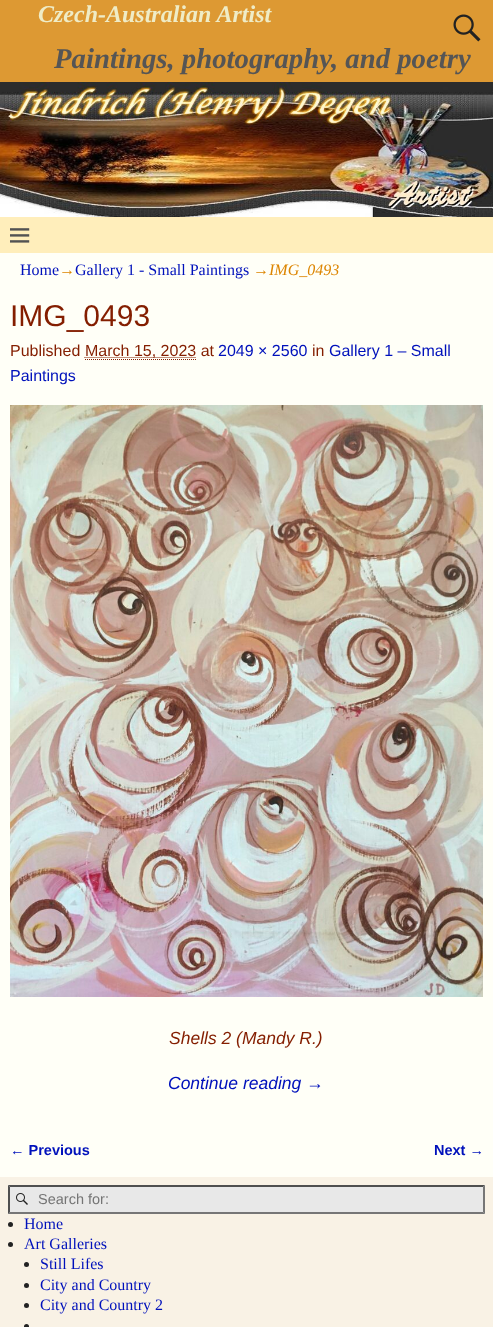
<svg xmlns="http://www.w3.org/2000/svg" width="493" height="1327">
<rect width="100%" height="100%" fill="#d93"/>
<text x="38" y="22" style="font-family:Liberation Serif;font-size:24px;font-weight:bold;font-style:italic;fill:#efecc6">Czech-Australian Artist</text>
<image x="453" y="14" width="28" height="28" href="media/1.png"/>
<text x="54" y="68" style="font-family:Liberation Serif;font-size:28.75px;font-weight:bold;font-style:italic;fill:#555">Paintings, photography, and poetry</text>
<image x="0" y="82" width="493" height="135" href="media/2.png"/>
<rect y="217" width="493" height="36" fill="#feb"/>
<image x="10" y="228" width="20" height="15" href="media/3.png"/>
<rect y="253" width="493" height="924" fill="#fffff7"/>
<text x="20" y="275" style="font-family:Liberation Serif;font-size:16px;fill:#01b">Home</text>
<text x="59" y="275" style="font-family:Liberation Serif;font-size:16px;fill:#dd8500">→</text>
<text x="75" y="275" style="font-family:Liberation Serif;font-size:16px;fill:#01b">Gallery 1 - Small Paintings</text>
<text x="253" y="275" style="font-family:Liberation Serif;font-size:16px;fill:#dd8500">→</text>
<text x="269" y="275" style="font-family:Liberation Serif;font-size:16px;font-style:italic;fill:#dd8500">IMG_0493</text>
<text x="10" y="326" style="font-family:Liberation Sans;font-size:30px;fill:#841e00">IMG_0493</text>
<text x="10" y="356" style="font-family:Liberation Sans;font-size:16px;fill:#841e00">Published</text>
<path d="M84.5 357.5h111.5" fill="none" stroke="#841e00" stroke-dasharray="1 1"/>
<text x="85" y="356" style="font-family:Liberation Sans;font-size:16px;fill:#841e00">March 15, 2023 at</text>
<path d="M85 359.5h111" fill="none" stroke="#841e00" stroke-dasharray="1 1"/>
<text x="218" y="356" style="font-family:Liberation Sans;font-size:16px;fill:#01b">2049 × 2560</text>
<text x="312" y="356" style="font-family:Liberation Sans;font-size:16px;fill:#841e00">in</text>
<text x="329" y="356" style="font-family:Liberation Sans;font-size:16px;fill:#01b">Gallery 1 – Small</text>
<text x="10" y="381" style="font-family:Liberation Sans;font-size:16px;fill:#01b">Paintings</text>
<image x="10" y="405" width="473" height="592" href="media/4.png"/>
<text x="169" y="1044" style="font-family:Liberation Sans;font-size:17.5px;font-style:italic;fill:#841e00">Shells 2 (Mandy R.)</text>
<text x="168" y="1089" style="font-family:Liberation Sans;font-size:17.5px;font-style:italic;fill:#01b">Continue reading →</text>
<text x="10" y="1155" style="font-family:Liberation Sans;font-size:14.5px;font-weight:bold;fill:#01b">← Previous</text>
<text x="434" y="1155" style="font-family:Liberation Sans;font-size:14.5px;font-weight:bold;fill:#01b">Next →</text>
<rect y="1177" width="493" height="150" fill="#f9f2e5"/>
<rect x="8" y="1185" width="477" height="29" fill="#e8e8e8"/>
<image x="16" y="1193" width="12" height="12" href="media/5.png"/>
<path d="M8 1185h477l-2 2h-473z" fill="#4f4f4f"/>
<path d="M485 1185v29l-2-2v-25z" fill="#767676"/>
<path d="M485 1214h-477l2-2h473z" fill="#767676"/>
<path d="M8 1214v-29l2 2v25z" fill="#4f4f4f"/>
<text x="38" y="1204" style="font-family:Liberation Sans;font-size:14.5px;fill:#757575">Search for:</text>
<circle cx="10.5" cy="1224.5" r="2.5" fill="#222"/>
<text x="24" y="1229" style="font-family:Liberation Serif;font-size:16px;fill:#01b">Home</text>
<circle cx="10.5" cy="1244.5" r="2.5" fill="#222"/>
<text x="24" y="1249" style="font-family:Liberation Serif;font-size:16px;fill:#01b">Art Galleries</text>
<circle cx="26.5" cy="1264.5" r="2.5" fill="#222"/>
<text x="40" y="1269" style="font-family:Liberation Serif;font-size:16px;fill:#01b">Still Lifes</text>
<circle cx="26.5" cy="1285.5" r="2.5" fill="#222"/>
<text x="40" y="1290" style="font-family:Liberation Serif;font-size:16px;fill:#01b">City and Country</text>
<circle cx="26.5" cy="1305.5" r="2.5" fill="#222"/>
<text x="40" y="1310" style="font-family:Liberation Serif;font-size:16px;fill:#01b">City and Country 2</text>
<circle cx="26.5" cy="1326.5" r="2.5" fill="#222"/>
</svg>
